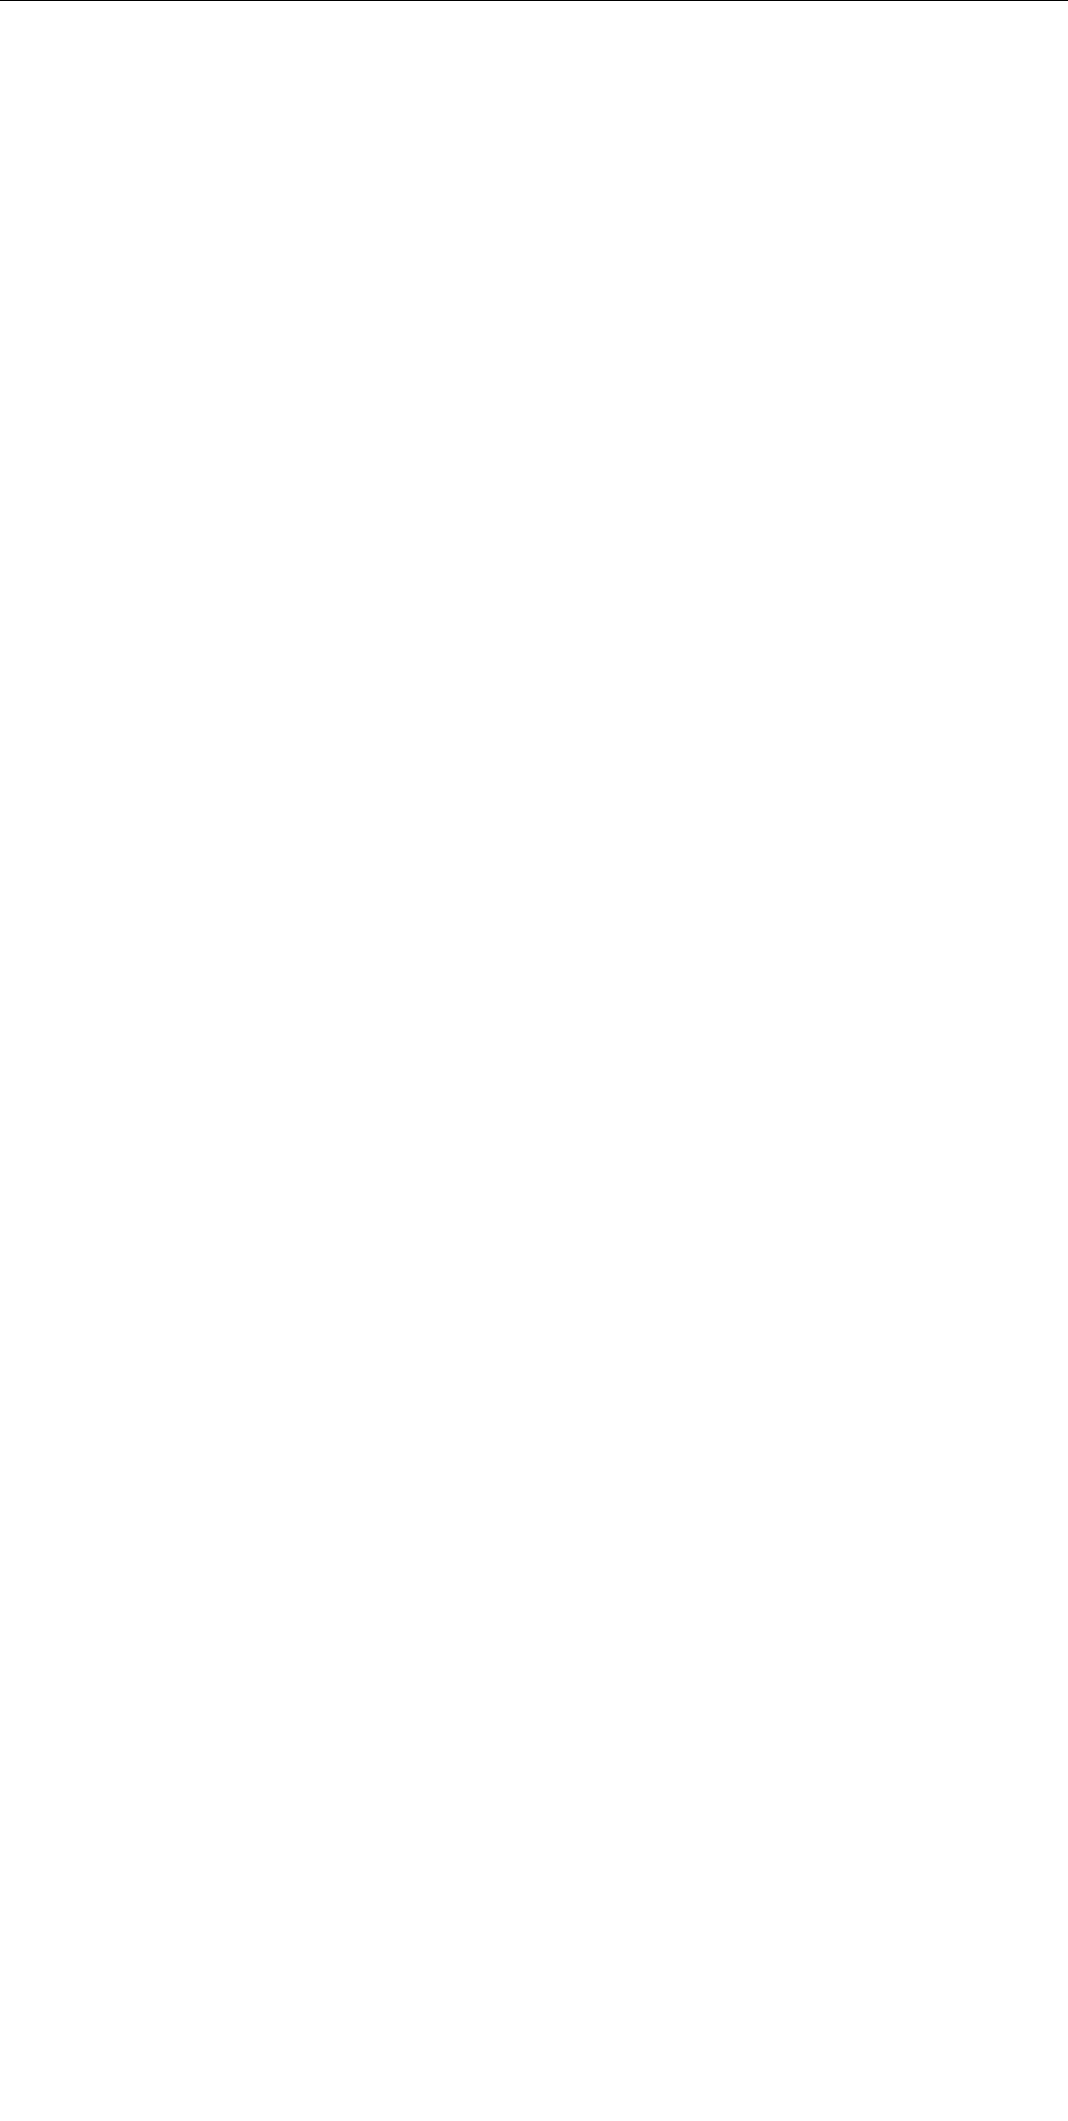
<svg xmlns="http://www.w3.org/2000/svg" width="1068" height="2121">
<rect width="100%" height="100%" fill="#000"/>
<rect y="1" width="1068" height="2120" fill="#fff"/>
</svg>
